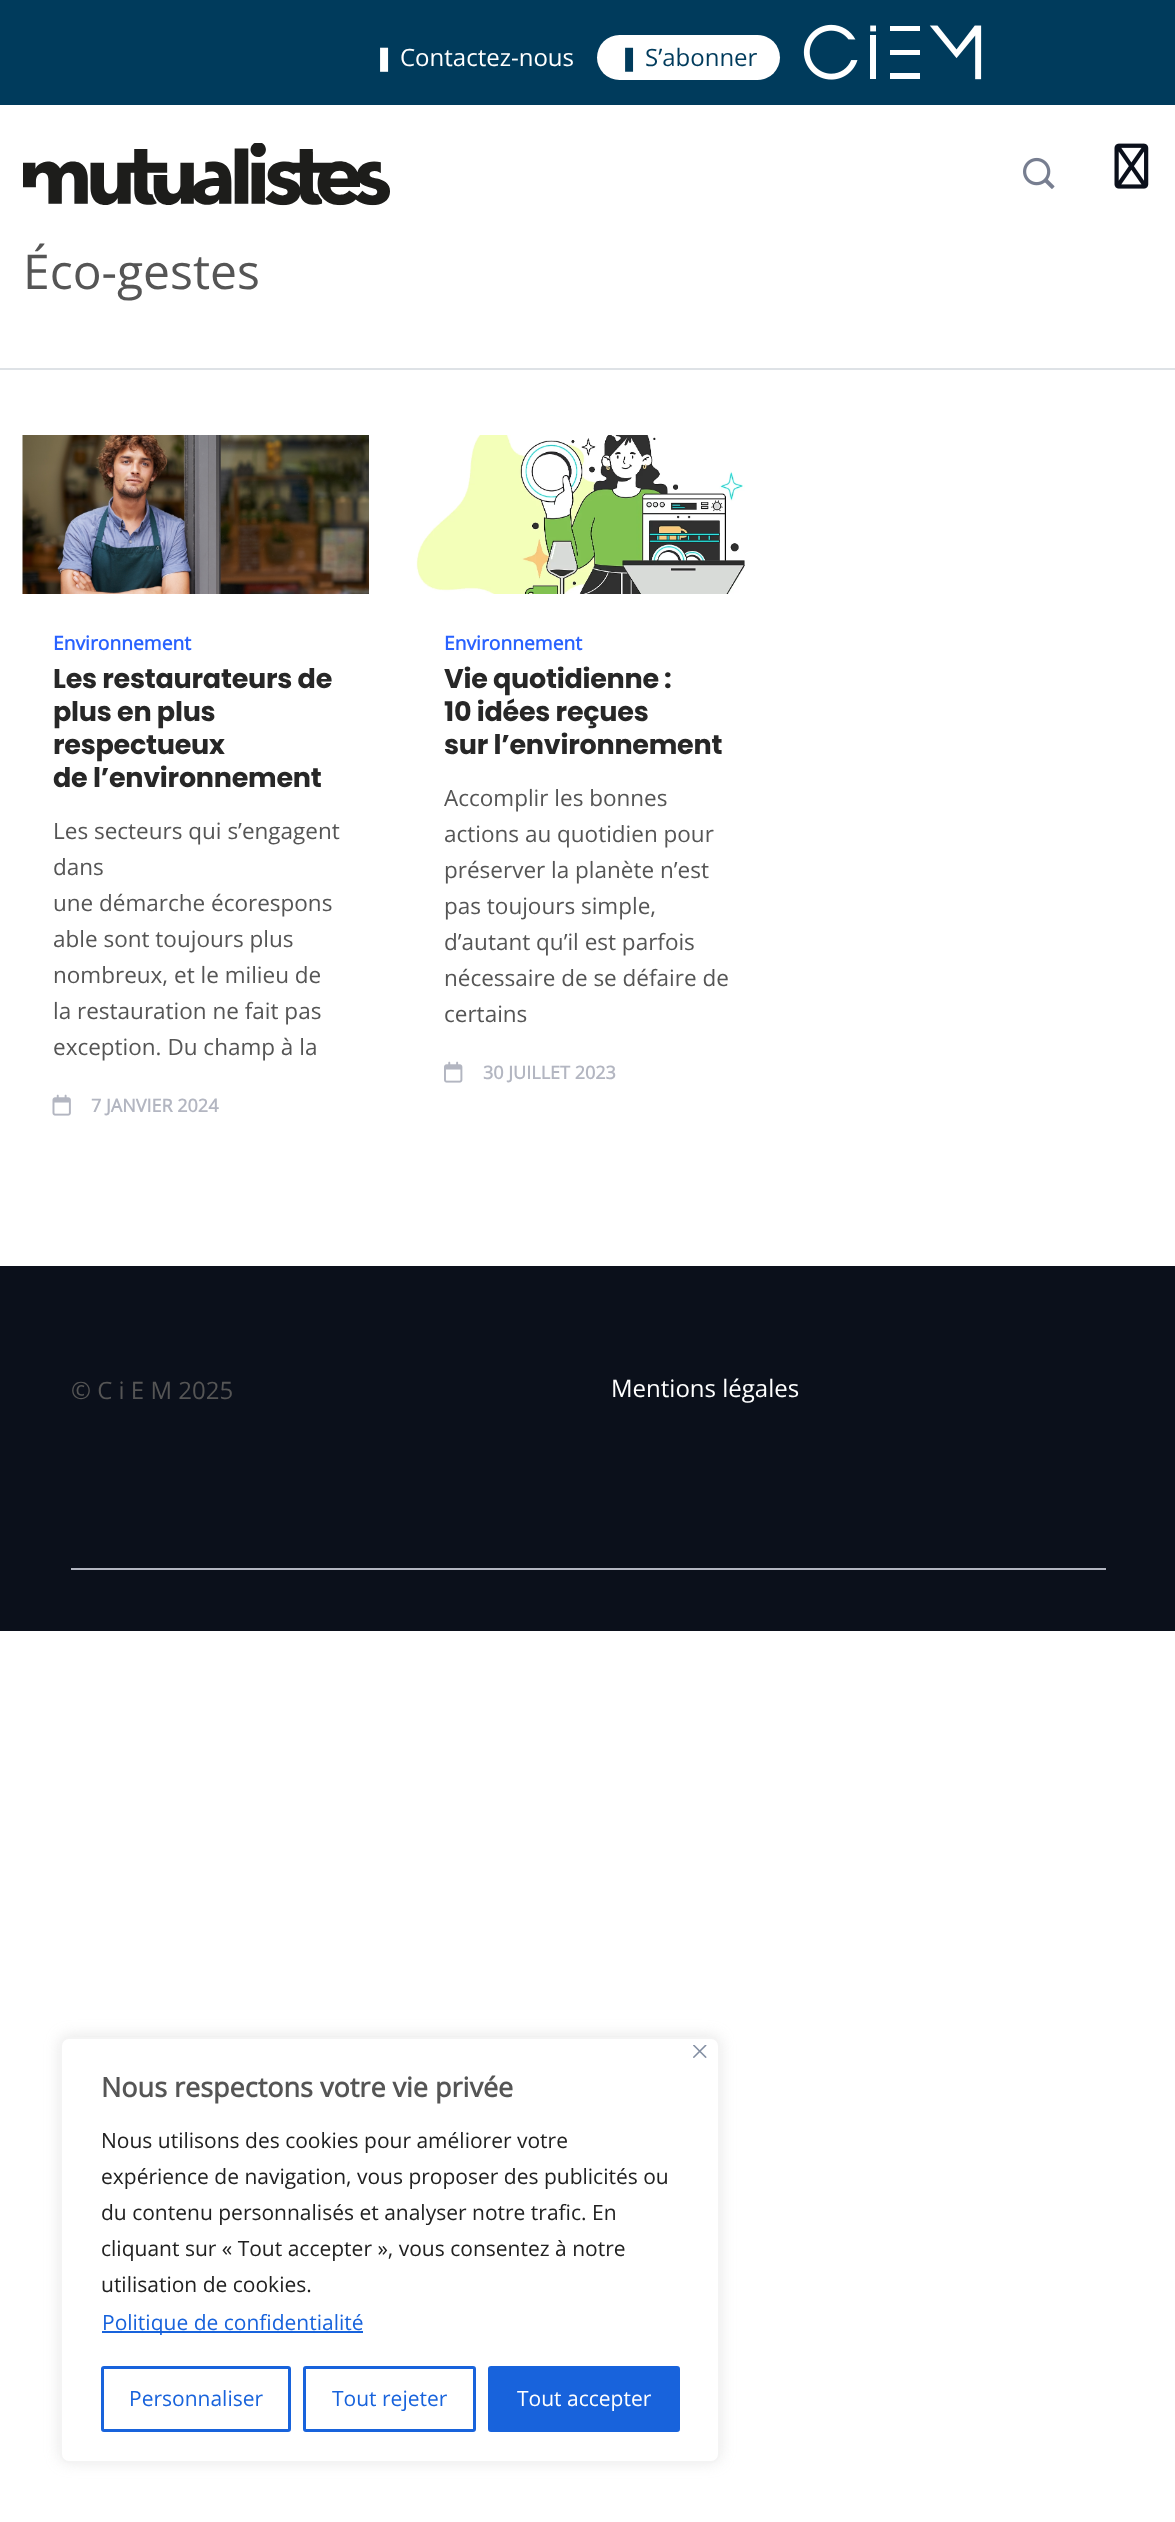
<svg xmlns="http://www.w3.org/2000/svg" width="1175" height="2522">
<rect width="100%" height="100%" fill="#fff"/>
<rect width="1175" height="105" fill="#003b5c"/>
<text x="374" y="66" style="font-family:DejaVu Sans;font-size:24px;fill:#fff">❚</text>
<text x="400" y="66" style="font-family:Open Sans;font-size:24px;fill:#fff">Contactez-nous</text>
<rect x="597" y="35" width="183" height="45" rx="22.5" fill="#fff"/>
<text x="619" y="66" style="font-family:DejaVu Sans;font-size:24px;fill:#003b5c">❚</text>
<text x="645" y="66" style="font-family:Open Sans;font-size:24px;fill:#003b5c">S’abonner</text>
<image x="803" y="24" width="179" height="56" href="media/1.png"/>
<image x="23" y="143" width="367" height="63" href="media/2.png"/>
<image x="1023" y="157" width="32" height="32" href="media/3.png"/>
<image x="1114" y="143" width="35" height="46" href="media/4.png"/>
<text x="23" y="289" style="font-family:Open Sans;font-size:48px;fill:#555">Éco-gestes</text>
<rect y="368" width="1175" height="2" fill="#dee2e6"/>
<image x="22" y="435" width="347" height="159" href="media/5.png"/>
<text x="53" y="650" style="font-family:Open Sans;font-size:19.25px;font-weight:bold;fill:#2962ff">Environnement</text>
<text x="53" y="688" style="font-family:Poppins;font-size:27px;font-weight:bold;letter-spacing:-0.25px;fill:#272727">Les restaurateurs de</text>
<text x="53" y="721" style="font-family:Poppins;font-size:27px;font-weight:bold;letter-spacing:-0.25px;fill:#272727">plus en plus</text>
<text x="53" y="754" style="font-family:Poppins;font-size:27px;font-weight:bold;letter-spacing:-0.25px;fill:#272727">respectueux</text>
<text x="53" y="787" style="font-family:Poppins;font-size:27px;font-weight:bold;letter-spacing:-0.25px;fill:#272727">de l’environnement</text>
<text x="53" y="839" style="font-family:Open Sans;font-size:22.5px;fill:#555">Les secteurs qui s’engagent</text>
<text x="53" y="875" style="font-family:Open Sans;font-size:22.5px;fill:#555">dans</text>
<text x="53" y="911" style="font-family:Open Sans;font-size:22.5px;fill:#555">une démarche écorespons</text>
<text x="53" y="947" style="font-family:Open Sans;font-size:22.5px;fill:#555">able sont toujours plus</text>
<text x="53" y="983" style="font-family:Open Sans;font-size:22.5px;fill:#555">nombreux, et le milieu de</text>
<text x="53" y="1019" style="font-family:Open Sans;font-size:22.5px;fill:#555">la restauration ne fait pas</text>
<text x="53" y="1055" style="font-family:Open Sans;font-size:22.5px;fill:#555">exception. Du champ à la</text>
<image x="52" y="1094" width="19" height="22" href="media/6.png"/>
<text x="91" y="1112" style="font-family:Open Sans;font-size:18px;font-weight:bold;fill:#b3b6c1">7 JANVIER 2024</text>
<image x="416" y="435" width="329" height="159" href="media/7.png"/>
<text x="444" y="650" style="font-family:Open Sans;font-size:19.25px;font-weight:bold;fill:#2962ff">Environnement</text>
<text x="444" y="688" style="font-family:Poppins;font-size:27px;font-weight:bold;letter-spacing:-0.25px;fill:#272727">Vie quotidienne :</text>
<text x="444" y="721" style="font-family:Poppins;font-size:27px;font-weight:bold;letter-spacing:-0.25px;fill:#272727">10 idées reçues</text>
<text x="444" y="754" style="font-family:Poppins;font-size:27px;font-weight:bold;letter-spacing:-0.25px;fill:#272727">sur l’environnement</text>
<text x="444" y="806" style="font-family:Open Sans;font-size:22.5px;fill:#555">Accomplir les bonnes</text>
<text x="444" y="842" style="font-family:Open Sans;font-size:22.5px;fill:#555">actions au quotidien pour</text>
<text x="444" y="878" style="font-family:Open Sans;font-size:22.5px;fill:#555">préserver la planète n’est</text>
<text x="444" y="914" style="font-family:Open Sans;font-size:22.5px;fill:#555">pas toujours simple,</text>
<text x="444" y="950" style="font-family:Open Sans;font-size:22.5px;fill:#555">d’autant qu’il est parfois</text>
<text x="444" y="986" style="font-family:Open Sans;font-size:22.5px;fill:#555">nécessaire de se défaire de</text>
<text x="444" y="1022" style="font-family:Open Sans;font-size:22.5px;fill:#555">certains</text>
<image x="444" y="1061" width="19" height="22" href="media/8.png"/>
<text x="483" y="1079" style="font-family:Open Sans;font-size:18px;font-weight:bold;fill:#b3b6c1">30 JUILLET 2023</text>
<rect y="1266" width="1175" height="365" fill="#0b101b"/>
<text x="71" y="1399" style="font-family:Open Sans;font-size:24px;fill:#555">© C i E M 2025</text>
<text x="611" y="1397" style="font-family:Open Sans;font-size:24px;fill:#fff">Mentions légales</text>
<rect x="71" y="1568" width="1035" height="2" fill="#b3b6c1"/>
<rect x="60" y="2036" width="660" height="426" rx="9" fill="#acabab4d" filter="blur(7.5px)"/>
<rect x="61" y="2038" width="658" height="424" rx="8" fill="#fff" stroke="#f4f4f4" stroke-width="2"/>
<image x="693" y="2045" width="14" height="13" href="media/9.png"/>
<text x="101" y="2097" style="font-family:Open Sans;font-size:27px;font-weight:bold;fill:#555">Nous respectons votre vie privée</text>
<text x="101" y="2148" style="font-family:Open Sans;font-size:21px;fill:#212121">Nous utilisons des cookies pour améliorer votre</text>
<text x="101" y="2184" style="font-family:Open Sans;font-size:21px;fill:#212121">expérience de navigation, vous proposer des publicités ou</text>
<text x="101" y="2220" style="font-family:Open Sans;font-size:21px;fill:#212121">du contenu personnalisés et analyser notre trafic. En</text>
<text x="101" y="2256" style="font-family:Open Sans;font-size:21px;fill:#212121">cliquant sur « Tout accepter », vous consentez à notre</text>
<text x="101" y="2292" style="font-family:Open Sans;font-size:21px;fill:#212121">utilisation de cookies.</text>
<rect x="102" y="2331" width="261" height="2" fill="#1863dc"/>
<text x="102" y="2330" style="font-family:Open Sans;font-size:21px;fill:#1863dc">Politique de confidentialité</text>
<rect x="102.5" y="2367.5" width="187" height="63" rx="1.5" fill="none" stroke="#1863dc" stroke-width="3"/>
<text x="129" y="2406" style="font-family:Open Sans;font-size:21px;fill:#1863dc">Personnaliser</text>
<rect x="304.5" y="2367.5" width="170" height="63" rx="1.5" fill="none" stroke="#1863dc" stroke-width="3"/>
<text x="332" y="2406" style="font-family:Open Sans;font-size:21px;fill:#1863dc">Tout rejeter</text>
<rect x="489.5" y="2367.5" width="189" height="63" rx="1.5" fill="#1863dc" stroke="#1863dc" stroke-width="3"/>
<text x="517" y="2406" style="font-family:Open Sans;font-size:21px;fill:#fff">Tout accepter</text>
</svg>
